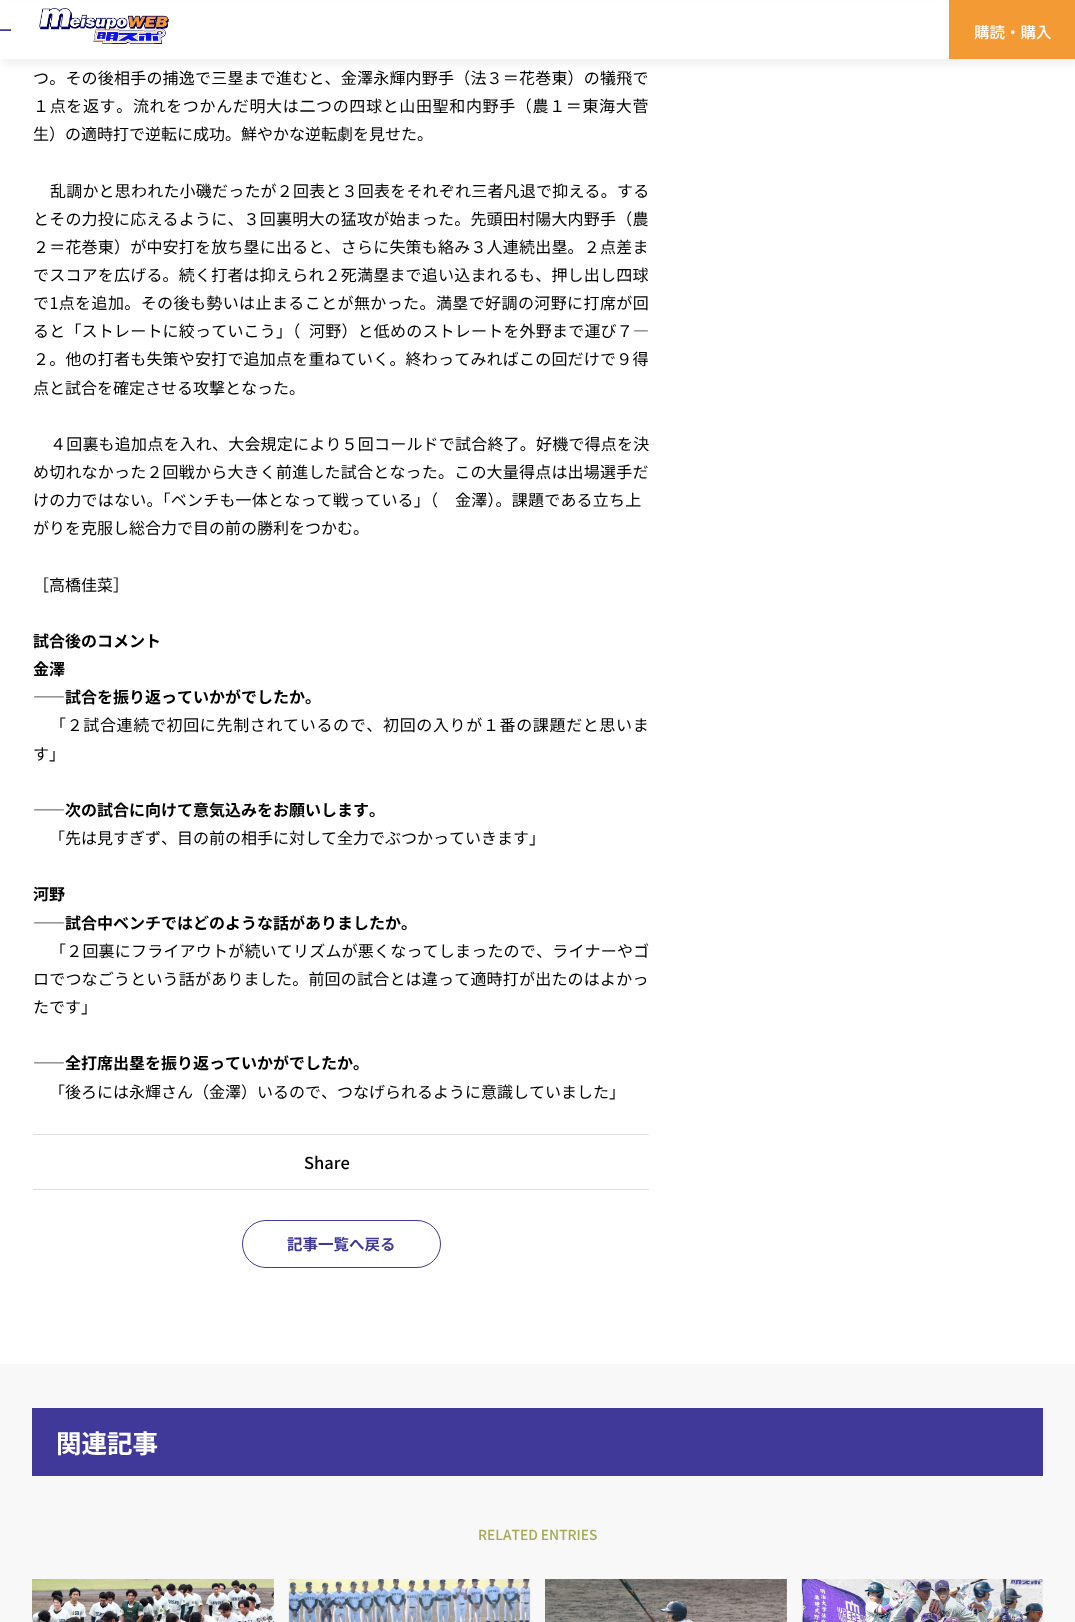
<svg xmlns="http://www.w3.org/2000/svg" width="1075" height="1622">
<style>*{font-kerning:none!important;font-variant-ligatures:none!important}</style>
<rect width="100%" height="100%" fill="#fff"/>
<rect x="2" y="6" width="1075" height="59" fill="#0000000d" filter="blur(3px)"/>
<rect y="3" width="949" height="56" fill="#fff"/>
<text x="-3" y="36" style="font-family:Noto Sans JP;font-size:15.5px;font-weight:500;fill:#403999">ー</text>
<image x="39" y="7" width="130" height="37" href="media/1.png"/>
<rect x="949" width="126" height="59" fill="#f49a34"/>
<text x="974" y="38" style="font-family:Noto Sans JP;font-size:15.5px;font-weight:500;fill:#fff">購読・購入</text>
<text x="33" y="84" style="font-family:Noto Sans JP;font-size:16px;letter-spacing:0.2px;fill:#000">つ。その後相手の捕逸で三塁まで進むと、金澤永輝内野手（法３＝花巻東）の犠飛で</text>
<text x="33" y="112" style="font-family:Noto Sans JP;font-size:16px;letter-spacing:0.65px;fill:#000">１点を返す。流れをつかんだ明大は二つの四球と山田聖和内野手（農１＝東海大菅</text>
<text x="33" y="140" style="font-family:Noto Sans JP;font-size:16px;fill:#000">生）の適時打で逆転に成功。鮮やかな逆転劇を見せた。</text>
<text x="50" y="197" style="font-family:Noto Sans JP;font-size:16px;letter-spacing:0.2px;fill:#000">乱調かと思われた小磯だったが２回表と３回表をそれぞれ三者凡退で抑える。する</text>
<text x="33" y="225" style="font-family:Noto Sans JP;font-size:16px;letter-spacing:0.2px;fill:#000">とその力投に応えるように、３回裏明大の猛攻が始まった。先頭田村陽大内野手（農</text>
<text x="33" y="253" style="font-family:Noto Sans JP;font-size:16px;letter-spacing:0.2px;fill:#000">２＝花巻東）が中安打を放ち塁に出ると、さらに失策も絡み３人連続出塁。２点差ま</text>
<text x="33" y="281" style="font-family:Noto Sans JP;font-size:16px;letter-spacing:0.2px;fill:#000">でスコアを広げる。続く打者は抑えられ２死満塁まで追い込まれるも、押し出し四球</text>
<text x="33" y="309" style="font-family:Noto Sans JP;font-size:16px;letter-spacing:0.4px;fill:#000">で1点を追加。その後も勢いは止まることが無かった。満塁で好調の河野に打席が回</text>
<text x="33" y="337" style="font-family:Noto Sans JP;font-size:16px;letter-spacing:0.2px;fill:#000">ると「ストレートに絞っていこう」（</text>
<text x="309" y="337" style="font-family:Noto Sans JP;font-size:16px;letter-spacing:0.2px;fill:#000">河野）と低めのストレートを外野まで運び７―</text>
<text x="33" y="365" style="font-family:Noto Sans JP;font-size:16px;letter-spacing:0.2px;fill:#000">２。他の打者も失策や安打で追加点を重ねていく。終わってみればこの回だけで９得</text>
<text x="33" y="394" style="font-family:Noto Sans JP;font-size:16px;fill:#000">点と試合を確定させる攻撃となった。</text>
<text x="50" y="450" style="font-family:Noto Sans JP;font-size:16px;letter-spacing:0.2px;fill:#000">４回裏も追加点を入れ、大会規定により５回コールドで試合終了。好機で得点を決</text>
<text x="33" y="478" style="font-family:Noto Sans JP;font-size:16px;letter-spacing:0.2px;fill:#000">め切れなかった２回戦から大きく前進した試合となった。この大量得点は出場選手だ</text>
<text x="33" y="506" style="font-family:Noto Sans JP;font-size:16px;letter-spacing:0.2px;fill:#000">けの力ではない。「ベンチも一体となって戦っている」（</text>
<text x="455" y="506" style="font-family:Noto Sans JP;font-size:16px;letter-spacing:0.2px;fill:#000">金澤）。課題である立ち上</text>
<text x="33" y="534" style="font-family:Noto Sans JP;font-size:16px;fill:#000">がりを克服し総合力で目の前の勝利をつかむ。</text>
<text x="33" y="591" style="font-family:Noto Sans JP;font-size:16px;fill:#000">［高橋佳菜］</text>
<text x="33" y="647" style="font-family:Noto Sans JP;font-size:16px;font-weight:bold;fill:#000">試合後のコメント</text>
<text x="33" y="675" style="font-family:Noto Sans JP;font-size:16px;font-weight:bold;fill:#000">金澤</text>
<text x="33" y="703" style="font-family:Noto Sans JP;font-size:16px;fill:#000">――</text>
<text x="65" y="703" style="font-family:Noto Sans JP;font-size:16px;font-weight:bold;fill:#000">試合を振り返っていかがでしたか。</text>
<text x="50" y="731" style="font-family:Noto Sans JP;font-size:16px;letter-spacing:0.65px;fill:#000">「２試合連続で初回に先制されているので、初回の入りが１番の課題だと思いま</text>
<text x="33" y="760" style="font-family:Noto Sans JP;font-size:16px;fill:#000">す」</text>
<text x="33" y="816" style="font-family:Noto Sans JP;font-size:16px;fill:#000">――</text>
<text x="65" y="816" style="font-family:Noto Sans JP;font-size:16px;font-weight:bold;fill:#000">次の試合に向けて意気込みをお願いします。</text>
<text x="49" y="844" style="font-family:Noto Sans JP;font-size:16px;fill:#000">「先は見すぎず、目の前の相手に対して全力でぶつかっていきます」</text>
<text x="33" y="900" style="font-family:Noto Sans JP;font-size:16px;font-weight:bold;fill:#000">河野</text>
<text x="33" y="929" style="font-family:Noto Sans JP;font-size:16px;fill:#000">――</text>
<text x="65" y="929" style="font-family:Noto Sans JP;font-size:16px;font-weight:bold;fill:#000">試合中ベンチではどのような話がありましたか。</text>
<text x="50" y="957" style="font-family:Noto Sans JP;font-size:16px;letter-spacing:0.2px;fill:#000">「２回裏にフライアウトが続いてリズムが悪くなってしまったので、ライナーやゴ</text>
<text x="33" y="985" style="font-family:Noto Sans JP;font-size:16px;letter-spacing:0.2px;fill:#000">ロでつなごうという話がありました。前回の試合とは違って適時打が出たのはよかっ</text>
<text x="33" y="1013" style="font-family:Noto Sans JP;font-size:16px;fill:#000">たです」</text>
<text x="33" y="1069" style="font-family:Noto Sans JP;font-size:16px;fill:#000">――</text>
<text x="65" y="1069" style="font-family:Noto Sans JP;font-size:16px;font-weight:bold;fill:#000">全打席出塁を振り返っていかがでしたか。</text>
<text x="49" y="1098" style="font-family:Noto Sans JP;font-size:16px;fill:#000">「後ろには永輝さん（金澤）いるので、つなげられるように意識していました」</text>
<rect x="33" y="1134" width="616" height="1" fill="#ddd"/>
<rect x="33" y="1189" width="616" height="1" fill="#ddd"/>
<text x="304" y="1169" style="font-family:Noto Sans JP;font-size:16.5px;font-weight:500;fill:#000">Share</text>
<rect x="242.5" y="1220.5" width="198" height="47" rx="23.5" fill="none" stroke="#403999"/>
<text x="287" y="1250" style="font-family:Noto Sans JP;font-size:15.5px;font-weight:bold;fill:#403999">記事一覧へ戻る</text>
<rect y="1364" width="1075" height="258" fill="#f8f8f8"/>
<rect x="32" y="1408" width="1011" height="68" fill="#403999"/>
<text x="56" y="1453" style="font-family:Noto Sans JP;font-size:25.5px;font-weight:bold;fill:#fff">関連記事</text>
<text x="478" y="1540" style="font-family:Noto Sans JP;font-size:13.75px;font-weight:500;fill:#a7a858">RELATED ENTRIES</text>
<image x="32" y="1579" width="242" height="43" href="media/2.png"/>
<image x="288" y="1579" width="243" height="43" href="media/3.png"/>
<image x="545" y="1579" width="242" height="43" href="media/4.png"/>
<image x="801" y="1579" width="242" height="43" href="media/5.png"/>
</svg>
